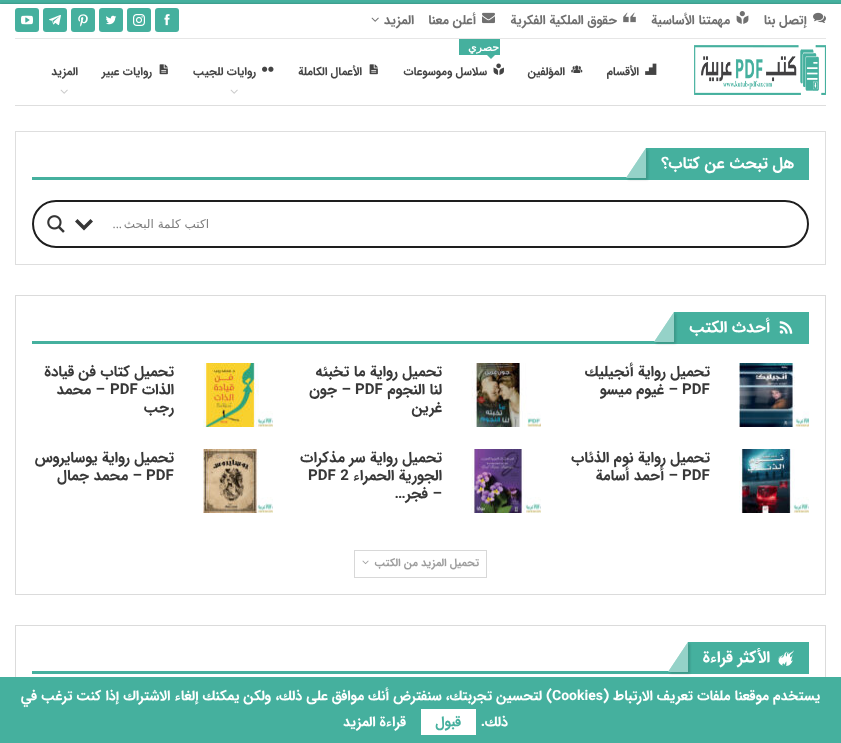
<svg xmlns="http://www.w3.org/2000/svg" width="841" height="743">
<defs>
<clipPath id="clip1"><path d="M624 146h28v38h-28zm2 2h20v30h-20z" clip-rule="evenodd"/></clipPath>
<clipPath id="clip2"><path d="M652 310h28v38h-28zm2 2h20v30h-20z" clip-rule="evenodd"/></clipPath>
<clipPath id="clip3"><path d="M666 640h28v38h-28zm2 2h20v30h-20z" clip-rule="evenodd"/></clipPath>
</defs>
<rect width="100%" height="100%" fill="#45b09e"/>
<rect y="4" width="841" height="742" fill="#00000045" filter="blur(1px)"/>
<rect y="4" width="841" height="673" fill="#fff"/>
<rect x="15" y="38" width="811" height="1" fill="#e6e6e6"/>
<image x="813" y="12" width="13" height="11" href="media/1.png"/>
<text x="807" y="24" style="font-family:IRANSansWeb;font-size:13px;font-weight:bold;direction:rtl;fill:#707070">إتصل بنا</text>
<image x="736" y="11" width="13" height="13" href="media/2.png"/>
<text x="730" y="24" style="font-family:IRANSansWeb;font-size:13px;font-weight:bold;direction:rtl;fill:#707070">مهمتنا الأساسية</text>
<image x="623" y="12" width="13" height="11" href="media/3.png"/>
<text x="617" y="24" style="font-family:IRANSansWeb;font-size:13px;font-weight:bold;direction:rtl;fill:#707070">حقوق الملكية الفكرية</text>
<image x="482" y="12" width="13" height="12" href="media/4.png"/>
<text x="476" y="24" style="font-family:IRANSansWeb;font-size:13px;font-weight:bold;direction:rtl;fill:#707070">أعلن معنا</text>
<text x="414" y="24" style="font-family:IRANSansWeb;font-size:13px;font-weight:bold;direction:rtl;fill:#707070">المزيد</text>
<image x="371" y="17" width="8" height="5" href="media/5.png"/>
<rect x="155" y="8" width="24" height="24" rx="3" fill="#45b09e"/>
<image x="164" y="14" width="6" height="12" href="media/6.png"/>
<rect x="127" y="8" width="24" height="24" rx="3" fill="#45b09e"/>
<image x="133" y="14" width="12" height="12" href="media/7.png"/>
<rect x="99" y="8" width="24" height="24" rx="3" fill="#45b09e"/>
<image x="106" y="15" width="11" height="10" href="media/8.png"/>
<rect x="71" y="8" width="24" height="24" rx="3" fill="#45b09e"/>
<image x="78" y="14" width="10" height="13" href="media/9.png"/>
<rect x="43" y="8" width="24" height="24" rx="3" fill="#45b09e"/>
<image x="49" y="15" width="12" height="10" href="media/10.png"/>
<rect x="15" y="8" width="24" height="24" rx="3" fill="#45b09e"/>
<image x="21" y="15" width="12" height="10" href="media/11.png"/>
<rect x="15" y="105" width="811" height="1" fill="#dedede"/>
<image x="694" y="45" width="132" height="50" href="media/12.png"/>
<image x="645" y="63" width="12" height="12" href="media/13.png"/>
<text x="639" y="75" style="font-family:IRANSansWeb;font-size:11.5px;font-weight:bold;direction:rtl;fill:#444">الأقسام</text>
<image x="571" y="65" width="12" height="8" href="media/14.png"/>
<text x="565" y="75" style="font-family:IRANSansWeb;font-size:11.5px;font-weight:bold;direction:rtl;fill:#444">المؤلفين</text>
<rect x="459" y="39" width="41" height="16" fill="#45b09e"/>
<text x="499" y="51" style="font-family:DejaVu Sans;font-size:11px;font-weight:bold;letter-spacing:1px;direction:rtl;fill:#fff">حصري</text>
<path d="M487 55h8l-4 4z" fill="#45b09e"/>
<image x="493" y="63" width="11" height="12" href="media/15.png"/>
<text x="487" y="75" style="font-family:IRANSansWeb;font-size:11.5px;font-weight:bold;direction:rtl;fill:#444">سلاسل وموسوعات</text>
<image x="369" y="64" width="9" height="11" href="media/16.png"/>
<text x="362" y="75" style="font-family:IRANSansWeb;font-size:11.5px;font-weight:bold;direction:rtl;fill:#444">الأعمال الكاملة</text>
<image x="262" y="66" width="12" height="6" href="media/17.png"/>
<text x="256" y="75" style="font-family:IRANSansWeb;font-size:11.5px;font-weight:bold;direction:rtl;fill:#444">روايات للجيب</text>
<image x="230" y="89" width="8" height="5" href="media/18.png"/>
<image x="159" y="64" width="9" height="11" href="media/16.png"/>
<text x="152" y="75" style="font-family:IRANSansWeb;font-size:11.5px;font-weight:bold;direction:rtl;fill:#444">روايات عبير</text>
<text x="78" y="75" style="font-family:IRANSansWeb;font-size:11.5px;font-weight:bold;direction:rtl;fill:#444">المزيد</text>
<image x="60" y="89" width="8" height="5" href="media/18.png"/>
<rect x="15.5" y="131.5" width="810" height="133" fill="none" stroke="#dedede"/>
<rect x="646" y="148" width="163" height="32" fill="#45b09e"/>
<rect x="32" y="177" width="614" height="3" fill="#45b09e"/>
<g clip-path="url(#clip1)">
<rect x="628" y="150" width="20" height="30" fill="#00000012" filter="blur(1px)"/>
</g>
<path d="M646 178h-20l20-30z" fill="#45b09e"/>
<text x="794" y="168" style="font-family:IRANSansWeb;font-size:16px;font-weight:bold;direction:rtl;fill:#fff">هل تبحث عن كتاب؟</text>
<g clip-path="url(#clip1)">
<rect x="628" y="150" width="20" height="30" fill="#00000012" filter="blur(1px)"/>
</g>
<path d="M646 178h-20l20-30z" fill="#ffffff6e"/>
<rect x="33" y="201" width="775" height="46" rx="23" fill="none" stroke="#1e1e1e" stroke-width="2"/>
<text x="209" y="228" style="font-family:DejaVu Sans;font-size:12px;direction:rtl;fill:#7d7d7d">اكتب كلمة البحث</text>
<text x="122" y="228" style="font-family:Open Sans;font-size:12px;direction:rtl;fill:#7d7d7d">...</text>
<path d="M90.5 219l2.5 2.5l-9 9l-9-9l2.5-2.5l6.5 6.5z" fill="#363636"/>
<image x="47" y="215" width="18" height="18" href="media/19.png"/>
<rect x="15.5" y="295.5" width="810" height="299" fill="none" stroke="#dbdbdb"/>
<rect x="674" y="312" width="135" height="32" fill="#45b09e"/>
<rect x="32" y="341" width="642" height="3" fill="#45b09e"/>
<g clip-path="url(#clip2)">
<rect x="656" y="314" width="20" height="30" fill="#00000012" filter="blur(1px)"/>
</g>
<path d="M674 342h-20l20-30z" fill="#45b09e"/>
<image x="779" y="321" width="14" height="13" href="media/20.png"/>
<text x="770" y="332" style="font-family:IRANSansWeb;font-size:16px;font-weight:bold;direction:rtl;fill:#fff">أحدث الكتب</text>
<g clip-path="url(#clip2)">
<rect x="656" y="314" width="20" height="30" fill="#00000012" filter="blur(1px)"/>
</g>
<path d="M674 342h-20l20-30z" fill="#ffffff6e"/>
<image x="723" y="363" width="86" height="64" href="media/21.png"/>
<text x="710" y="376" style="font-family:IRANSansWeb;font-size:15px;font-weight:bold;direction:rtl;fill:#383838">تحميل رواية أنجيليك</text>
<text x="682" y="394" style="font-family:IRANSansWeb;font-size:15px;font-weight:bold;fill:#383838">PDF</text>
<text x="678" y="394" style="font-family:IRANSansWeb;font-size:15px;font-weight:bold;direction:rtl;fill:#383838">– غيوم ميسو</text>
<image x="455" y="363" width="86" height="64" href="media/22.png"/>
<text x="442" y="376" style="font-family:IRANSansWeb;font-size:15px;font-weight:bold;direction:rtl;fill:#383838">تحميل رواية ما تخبئه</text>
<text x="442" y="394" style="font-family:IRANSansWeb;font-size:15px;font-weight:bold;direction:rtl;fill:#383838">لنا النجوم</text>
<text x="355" y="394" style="font-family:IRANSansWeb;font-size:15px;font-weight:bold;fill:#383838">PDF</text>
<text x="351" y="394" style="font-family:IRANSansWeb;font-size:15px;font-weight:bold;direction:rtl;fill:#383838">– جون</text>
<text x="442" y="412" style="font-family:IRANSansWeb;font-size:15px;font-weight:bold;direction:rtl;fill:#383838">غرين</text>
<image x="187" y="363" width="86" height="64" href="media/23.png"/>
<text x="174" y="376" style="font-family:IRANSansWeb;font-size:15px;font-weight:bold;direction:rtl;fill:#383838">تحميل كتاب فن قيادة</text>
<text x="174" y="394" style="font-family:IRANSansWeb;font-size:15px;font-weight:bold;direction:rtl;fill:#383838">الذات</text>
<text x="110" y="394" style="font-family:IRANSansWeb;font-size:15px;font-weight:bold;fill:#383838">PDF</text>
<text x="105" y="394" style="font-family:IRANSansWeb;font-size:15px;font-weight:bold;direction:rtl;fill:#383838">– محمد</text>
<text x="174" y="412" style="font-family:IRANSansWeb;font-size:15px;font-weight:bold;direction:rtl;fill:#383838">رجب</text>
<image x="723" y="449" width="86" height="64" href="media/24.png"/>
<text x="710" y="462" style="font-family:IRANSansWeb;font-size:15px;font-weight:bold;direction:rtl;fill:#383838">تحميل رواية نوم الذئاب</text>
<text x="682" y="480" style="font-family:IRANSansWeb;font-size:15px;font-weight:bold;fill:#383838">PDF</text>
<text x="678" y="480" style="font-family:IRANSansWeb;font-size:15px;font-weight:bold;direction:rtl;fill:#383838">– أحمد أسامة</text>
<image x="455" y="449" width="86" height="64" href="media/25.png"/>
<text x="442" y="462" style="font-family:IRANSansWeb;font-size:15px;font-weight:bold;direction:rtl;fill:#383838">تحميل رواية سر مذكرات</text>
<text x="442" y="480" style="font-family:IRANSansWeb;font-size:15px;font-weight:bold;direction:rtl;fill:#383838">الجورية الحمراء</text>
<text x="308" y="480" style="font-family:IRANSansWeb;font-size:15px;font-weight:bold;fill:#383838">PDF 2</text>
<text x="442" y="498" style="font-family:IRANSansWeb;font-size:15px;font-weight:bold;direction:rtl;fill:#383838">– فجر…</text>
<image x="187" y="449" width="86" height="64" href="media/26.png"/>
<text x="174" y="462" style="font-family:IRANSansWeb;font-size:15px;font-weight:bold;direction:rtl;fill:#383838">تحميل رواية يوسايروس</text>
<text x="146" y="480" style="font-family:IRANSansWeb;font-size:15px;font-weight:bold;fill:#383838">PDF</text>
<text x="142" y="480" style="font-family:IRANSansWeb;font-size:15px;font-weight:bold;direction:rtl;fill:#383838">– محمد جمال</text>
<rect x="354.5" y="550.5" width="132" height="27" fill="none" stroke="#d8d8d8"/>
<text x="479" y="566" style="font-family:IRANSansWeb;font-size:11px;font-weight:bold;direction:rtl;fill:#9e9e9e">تحميل المزيد من الكتب</text>
<image x="362" y="560" width="7" height="5" href="media/27.png"/>
<rect x="15.5" y="625.5" width="810" height="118" fill="none" stroke="#dbdbdb"/>
<rect x="688" y="642" width="121" height="32" fill="#45b09e"/>
<rect x="32" y="671" width="656" height="3" fill="#45b09e"/>
<g clip-path="url(#clip3)">
<rect x="670" y="644" width="20" height="30" fill="#00000012" filter="blur(1px)"/>
</g>
<path d="M688 672h-20l20-30z" fill="#45b09e"/>
<image x="778" y="650" width="16" height="16" href="media/28.png"/>
<text x="770" y="662" style="font-family:IRANSansWeb;font-size:16px;font-weight:bold;direction:rtl;fill:#fff">الأكثر قراءة</text>
<g clip-path="url(#clip3)">
<rect x="670" y="644" width="20" height="30" fill="#00000012" filter="blur(1px)"/>
</g>
<path d="M688 672h-20l20-30z" fill="#ffffff6e"/>
<rect y="677" width="841" height="66" fill="#45b09e"/>
<text x="820" y="700" style="font-family:IRANSansWeb;font-size:14px;font-weight:bold;direction:rtl;fill:#fff">يستخدم موقعنا ملفات تعريف الارتباط (</text>
<text x="552" y="700" style="font-family:IRANSansWeb;font-size:14px;font-weight:bold;fill:#fff">Cookies</text>
<text x="552" y="700" style="font-family:IRANSansWeb;font-size:14px;font-weight:bold;direction:rtl;fill:#fff">) لتحسين تجربتك، سنفترض أنك موافق على ذلك، ولكن يمكنك إلغاء الاشتراك إذا كنت ترغب في</text>
<text x="508" y="726" style="font-family:IRANSansWeb;font-size:14px;font-weight:bold;direction:rtl;fill:#fff">ذلك.</text>
<rect x="421" y="709" width="55" height="26" fill="#fff"/>
<text x="461" y="726" style="font-family:IRANSansWeb;font-size:14px;font-weight:bold;direction:rtl;fill:#45b09e">قبول</text>
<text x="406" y="726" style="font-family:IRANSansWeb;font-size:14px;font-weight:bold;direction:rtl;fill:#fff">قراءة المزيد</text>
</svg>
